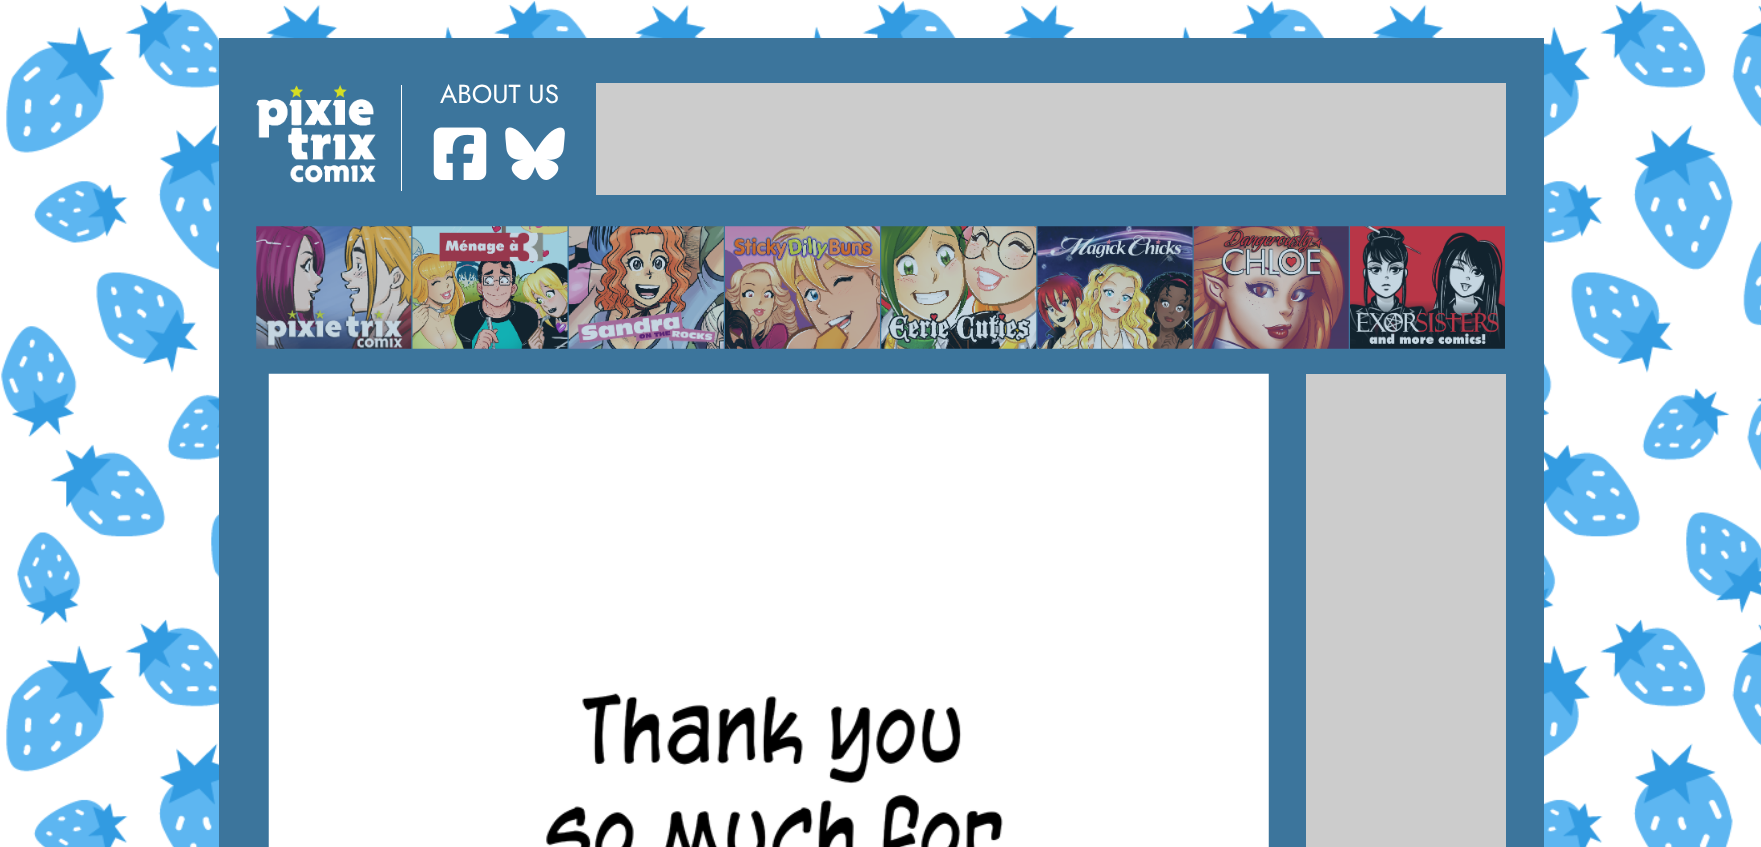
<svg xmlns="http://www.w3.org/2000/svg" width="1761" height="847">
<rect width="100%" height="100%" fill="#fff"/>
<image x="0" y="0" width="1761" height="847" href="media/1.png"/>
<rect x="219" y="38" width="1325" height="809" fill="#3c759c"/>
<rect x="401" y="85" width="1" height="106" fill="#fff"/>
<image x="256" y="85" width="121" height="98" href="media/2.png"/>
<text x="440" y="103" style="font-family:Jost;font-size:26px;fill:#fff">ABOUT US</text>
<image x="433" y="127" width="54" height="53" href="media/3.png"/>
<image x="505" y="127" width="60" height="53" href="media/4.png"/>
<rect x="596" y="83" width="910" height="112" fill="#ccc"/>
<image x="256" y="226" width="156" height="123" href="media/5.png"/>
<image x="412" y="226" width="156" height="123" href="media/6.png"/>
<image x="568" y="226" width="156" height="123" href="media/7.png"/>
<image x="725" y="226" width="155" height="123" href="media/8.png"/>
<image x="881" y="226" width="156" height="123" href="media/9.png"/>
<image x="1037" y="226" width="156" height="123" href="media/10.png"/>
<image x="1193" y="226" width="156" height="123" href="media/11.png"/>
<image x="1350" y="226" width="155" height="123" href="media/12.png"/>
<image x="268" y="373" width="1001" height="474" href="media/13.png"/>
<rect x="1306" y="374" width="200" height="473" fill="#ccc"/>
</svg>
